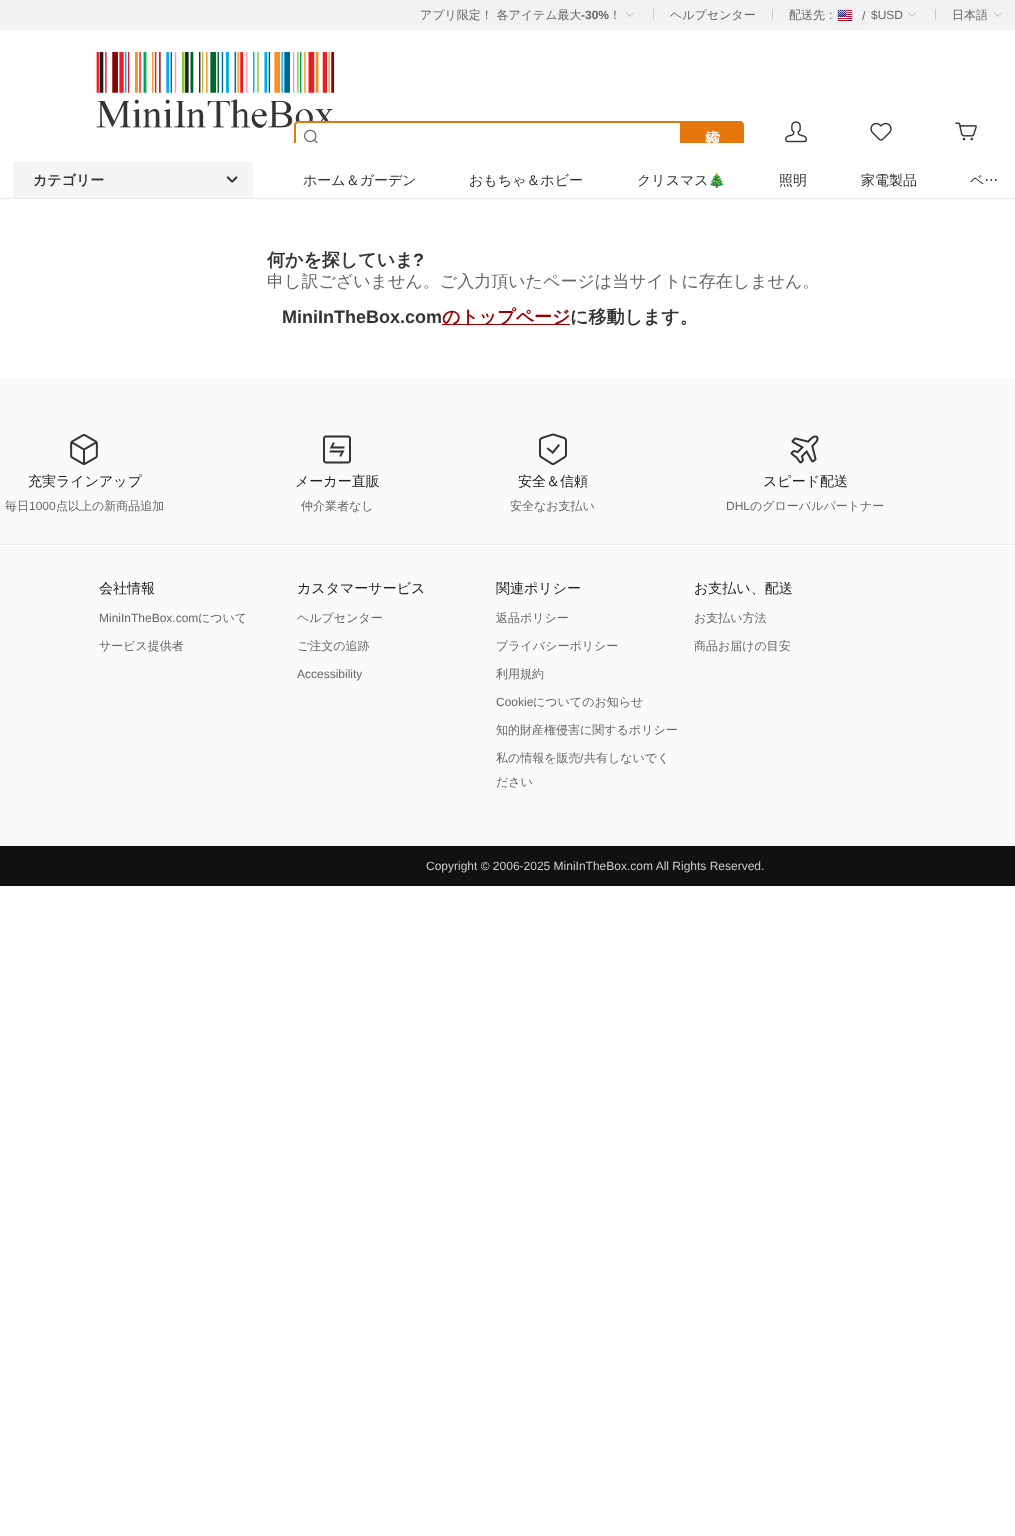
<svg xmlns="http://www.w3.org/2000/svg" width="1015" height="1536">
<rect width="100%" height="100%" fill="#fff"/>
<rect width="1015" height="30" fill="#f2f2f2"/>
<text x="420" y="19" style="font-family:WenQuanYi Zen Hei;font-size:12px;font-weight:500;fill:#666">アプリ限定！ 各アイテム最大</text>
<text x="581" y="19" style="font-family:Liberation Sans;font-size:12px;font-weight:bold;fill:#666">-30%</text>
<text x="609" y="19" style="font-family:WenQuanYi Zen Hei;font-size:12px;font-weight:500;fill:#666">！</text>
<image x="626" y="12" width="8" height="5" href="media/1.png"/>
<rect x="653" y="9" width="1" height="11" fill="#ccc"/>
<text x="670" y="19" style="font-family:WenQuanYi Zen Hei;font-size:12px;font-weight:500;fill:#666">ヘルプセンター</text>
<rect x="772" y="9" width="1" height="11" fill="#ccc"/>
<text x="789" y="19" style="font-family:WenQuanYi Zen Hei;font-size:12px;font-weight:500;fill:#666">配送先</text>
<text x="829" y="19" style="font-family:Liberation Sans;font-size:12px;fill:#666">:</text>
<image x="837" y="9" width="16" height="12" href="media/2.png"/>
<text x="862" y="20" style="font-family:Liberation Sans;font-size:12px;fill:#666">/</text>
<text x="871" y="19" style="font-family:Liberation Sans;font-size:12px;fill:#666">$USD</text>
<image x="908" y="12" width="8" height="5" href="media/1.png"/>
<rect x="935" y="9" width="1" height="11" fill="#ccc"/>
<text x="952" y="19" style="font-family:WenQuanYi Zen Hei;font-size:12px;font-weight:500;fill:#666">日本語</text>
<image x="994" y="12" width="8" height="5" href="media/1.png"/>
<image x="96" y="52" width="239" height="76" href="media/3.png"/>
<path d="M298 122h383v34h-383c-1.5 0-3-1.5-3-3v-28c0-1.5 1.5-3 3-3z" fill="#fff" stroke="#e5760b" stroke-width="2"/>
<image x="304" y="129" width="14" height="14" href="media/4.png"/>
<path d="M682 121h58c2 0 4 2 4 4v28c0 2-2 4-4 4h-58z" fill="#e5760b"/>
<text x="705" y="144" style="font-family:WenQuanYi Zen Hei;font-size:16px;font-weight:500;fill:#fff">検</text>
<text x="705" y="144" style="font-family:WenQuanYi Zen Hei;font-size:16px;font-weight:500;fill:#fff">索</text>
<image x="785" y="121" width="22" height="22" href="media/5.png"/>
<image x="870" y="122" width="22" height="19" href="media/6.png"/>
<image x="955" y="122" width="22" height="19" href="media/7.png"/>
<rect y="198" width="1015" height="1" fill="#ebebeb"/>
<path d="M16 143h984c1.5 0 3 1.5 3 3v52h-990v-52c0-1.5 1.5-3 3-3z" fill="#fff"/>
<rect x="13" y="162" width="240" height="36" fill="#f5f5f5"/>
<text x="33" y="185" style="font-family:WenQuanYi Zen Hei;font-size:14px;font-weight:bold;fill:#333">カテゴリー</text>
<image x="226" y="176" width="12" height="7" href="media/8.png"/>
<text x="303" y="185" style="font-family:WenQuanYi Zen Hei;font-size:14px;font-weight:500;fill:#333">ホーム＆ガーデン</text>
<text x="469" y="185" style="font-family:WenQuanYi Zen Hei;font-size:14px;font-weight:500;fill:#333">おもちゃ＆ホビー</text>
<text x="637" y="185" style="font-family:WenQuanYi Zen Hei;font-size:14px;font-weight:500;fill:#333">クリスマス</text>
<text x="708" y="185" style="font-family:Noto Color Emoji;font-size:14px;fill:#333">🎄</text>
<text x="779" y="185" style="font-family:WenQuanYi Zen Hei;font-size:14px;font-weight:500;fill:#333">照明</text>
<text x="861" y="185" style="font-family:WenQuanYi Zen Hei;font-size:14px;font-weight:500;fill:#333">家電製品</text>
<text x="970" y="185" style="font-family:WenQuanYi Zen Hei;font-size:14px;font-weight:500;fill:#333">ベ…</text>
<text x="267" y="266" style="font-family:WenQuanYi Zen Hei;font-size:18px;font-weight:bold;fill:#333">何かを探していま</text>
<text x="413" y="266" style="font-family:Liberation Sans;font-size:18px;font-weight:bold;fill:#333">?</text>
<text x="267" y="287" style="font-family:WenQuanYi Zen Hei;font-size:17px;font-weight:500;fill:#666">申し訳ございません。ご入力頂いたページは当サイトに存在しません。</text>
<text x="282" y="323" style="font-family:Liberation Sans;font-size:18px;font-weight:bold;fill:#333">MiniInTheBox.com</text>
<rect x="442" y="324" width="128" height="1" fill="#900"/>
<text x="442" y="323" style="font-family:WenQuanYi Zen Hei;font-size:18px;font-weight:bold;fill:#900">のトップページ</text>
<text x="570" y="323" style="font-family:WenQuanYi Zen Hei;font-size:18px;font-weight:bold;fill:#333">に移動します。</text>
<rect y="378" width="1015" height="468" fill="#fafafa"/>
<rect y="544" width="1015" height="1" fill="#eaeaea"/>
<image x="70" y="434" width="28" height="31" href="media/9.png"/>
<text x="28" y="486" style="font-family:WenQuanYi Zen Hei;font-size:14px;font-weight:500;fill:#222">充実ラインアップ</text>
<text x="5" y="510" style="font-family:WenQuanYi Zen Hei;font-size:12px;font-weight:500;fill:#666">毎日</text>
<text x="29" y="510" style="font-family:Liberation Sans;font-size:12px;fill:#666">1000</text>
<text x="56" y="510" style="font-family:WenQuanYi Zen Hei;font-size:12px;font-weight:500;fill:#666">点以上の新商品追加</text>
<image x="323" y="435" width="28" height="29" href="media/10.png"/>
<text x="295" y="486" style="font-family:WenQuanYi Zen Hei;font-size:14px;font-weight:500;fill:#222">メーカー直販</text>
<text x="301" y="510" style="font-family:WenQuanYi Zen Hei;font-size:12px;font-weight:500;fill:#666">仲介業者なし</text>
<image x="539" y="433" width="28" height="33" href="media/11.png"/>
<text x="518" y="486" style="font-family:WenQuanYi Zen Hei;font-size:14px;font-weight:500;fill:#222">安全＆信頼</text>
<text x="510" y="510" style="font-family:WenQuanYi Zen Hei;font-size:12px;font-weight:500;fill:#666">安全なお支払い</text>
<image x="790" y="435" width="29" height="29" href="media/12.png"/>
<text x="763" y="486" style="font-family:WenQuanYi Zen Hei;font-size:14px;font-weight:500;fill:#222">スピード配送</text>
<text x="726" y="510" style="font-family:Liberation Sans;font-size:12px;fill:#666">DHL</text>
<text x="750" y="510" style="font-family:WenQuanYi Zen Hei;font-size:12px;font-weight:500;fill:#666">のグローバルパートナー</text>
<text x="99" y="593" style="font-family:WenQuanYi Zen Hei;font-size:14px;font-weight:500;fill:#222">会社情報</text>
<text x="99" y="622" style="font-family:Liberation Sans;font-size:12px;fill:#666">MiniInTheBox.com</text>
<text x="198" y="622" style="font-family:WenQuanYi Zen Hei;font-size:12px;font-weight:500;fill:#666">について</text>
<text x="99" y="650" style="font-family:WenQuanYi Zen Hei;font-size:12px;font-weight:500;fill:#666">サービス提供者</text>
<text x="297" y="593" style="font-family:WenQuanYi Zen Hei;font-size:14px;font-weight:500;fill:#222">カスタマーサービス</text>
<text x="297" y="622" style="font-family:WenQuanYi Zen Hei;font-size:12px;font-weight:500;fill:#666">ヘルプセンター</text>
<text x="297" y="650" style="font-family:WenQuanYi Zen Hei;font-size:12px;font-weight:500;fill:#666">ご注文の追跡</text>
<text x="297" y="678" style="font-family:Liberation Sans;font-size:12px;fill:#666">Accessibility</text>
<text x="496" y="593" style="font-family:WenQuanYi Zen Hei;font-size:14px;font-weight:500;fill:#222">関連ポリシー</text>
<text x="496" y="622" style="font-family:WenQuanYi Zen Hei;font-size:12px;font-weight:500;fill:#666">返品ポリシー</text>
<text x="496" y="650" style="font-family:WenQuanYi Zen Hei;font-size:12px;font-weight:500;fill:#666">プライバシーポリシー</text>
<text x="496" y="678" style="font-family:WenQuanYi Zen Hei;font-size:12px;font-weight:500;fill:#666">利用規約</text>
<text x="496" y="706" style="font-family:Liberation Sans;font-size:12px;fill:#666">Cookie</text>
<text x="533" y="706" style="font-family:WenQuanYi Zen Hei;font-size:12px;font-weight:500;fill:#666">についてのお知らせ</text>
<text x="496" y="734" style="font-family:WenQuanYi Zen Hei;font-size:12px;font-weight:500;fill:#666">知的財産権侵害に関するポリシー</text>
<text x="496" y="762" style="font-family:WenQuanYi Zen Hei;font-size:12px;font-weight:500;fill:#666">私の情報を販売</text>
<text x="580" y="762" style="font-family:Liberation Sans;font-size:12px;fill:#666">/</text>
<text x="584" y="762" style="font-family:WenQuanYi Zen Hei;font-size:12px;font-weight:500;fill:#666">共有しないでく</text>
<text x="496" y="786" style="font-family:WenQuanYi Zen Hei;font-size:12px;font-weight:500;fill:#666">ださい</text>
<text x="694" y="593" style="font-family:WenQuanYi Zen Hei;font-size:14px;font-weight:500;fill:#222">お支払い、配送</text>
<text x="694" y="622" style="font-family:WenQuanYi Zen Hei;font-size:12px;font-weight:500;fill:#666">お支払い方法</text>
<text x="694" y="650" style="font-family:WenQuanYi Zen Hei;font-size:12px;font-weight:500;fill:#666">商品お届けの目安</text>
<rect y="846" width="1015" height="40" fill="#111"/>
<text x="426" y="870" style="font-family:Liberation Sans;font-size:12px;fill:#ccc">Copyright © 2006-2025 MiniInTheBox.com All Rights Reserved.</text>
</svg>
